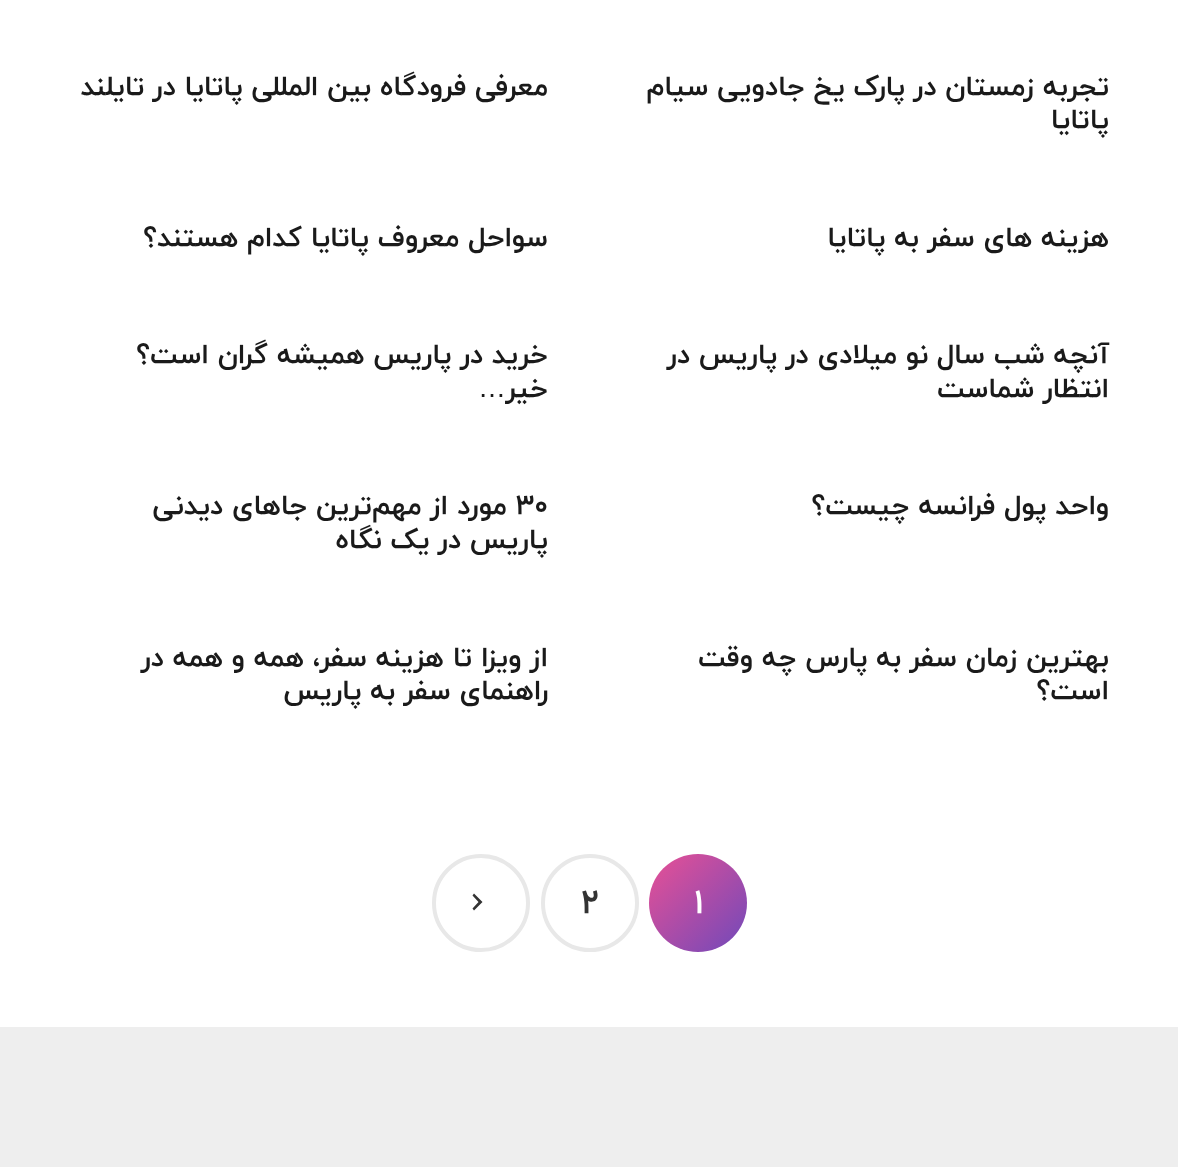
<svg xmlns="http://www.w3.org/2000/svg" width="1178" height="1167">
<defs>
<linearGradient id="g1" gradientUnits="userSpaceOnUse" x1="649" y1="854" x2="747" y2="952"><stop offset="0" stop-color="#e95095"/><stop offset="1" stop-color="#7049ba"/></linearGradient>
</defs>
<rect width="100%" height="100%" fill="#eee"/>
<rect width="1178" height="1027" fill="#fff"/>
<text x="1109" y="95" style="font-family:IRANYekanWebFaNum;font-size:28px;font-weight:bold;direction:rtl;fill:#1a1a1a">تجربه زمستان در پارک یخ جادویی سیام</text>
<text x="1109" y="128" style="font-family:IRANYekanWebFaNum;font-size:28px;font-weight:bold;direction:rtl;fill:#1a1a1a">پاتایا</text>
<text x="548" y="95" style="font-family:IRANYekanWebFaNum;font-size:28px;font-weight:bold;direction:rtl;fill:#1a1a1a">معرفی فرودگاه بین المللی پاتایا در تایلند</text>
<text x="1109" y="246" style="font-family:IRANYekanWebFaNum;font-size:28px;font-weight:bold;direction:rtl;fill:#1a1a1a">هزینه های سفر به پاتایا</text>
<text x="548" y="246" style="font-family:IRANYekanWebFaNum;font-size:28px;font-weight:bold;direction:rtl;fill:#1a1a1a">سواحل معروف پاتایا کدام هستند؟</text>
<text x="1109" y="363" style="font-family:IRANYekanWebFaNum;font-size:28px;font-weight:bold;direction:rtl;fill:#1a1a1a">آنچه شب سال نو میلادی در پاریس در</text>
<text x="1109" y="397" style="font-family:IRANYekanWebFaNum;font-size:28px;font-weight:bold;direction:rtl;fill:#1a1a1a">انتظار شماست</text>
<text x="548" y="363" style="font-family:IRANYekanWebFaNum;font-size:28px;font-weight:bold;direction:rtl;fill:#1a1a1a">خرید در پاریس همیشه گران است؟</text>
<text x="548" y="397" style="font-family:IRANYekanWebFaNum;font-size:28px;font-weight:bold;direction:rtl;fill:#1a1a1a">خیر</text>
<text x="506" y="397" style="font-family:Liberation Sans;font-size:28px;direction:rtl;fill:#1a1a1a">…</text>
<text x="1109" y="514" style="font-family:IRANYekanWebFaNum;font-size:28px;font-weight:bold;direction:rtl;fill:#1a1a1a">واحد پول فرانسه چیست؟</text>
<text x="516" y="514" style="font-family:IRANYekanWebFaNum;font-size:28px;font-weight:bold;fill:#1a1a1a">۳۰</text>
<text x="507" y="514" style="font-family:IRANYekanWebFaNum;font-size:28px;font-weight:bold;direction:rtl;fill:#1a1a1a">مورد از مهم‌ترین جاهای دیدنی</text>
<text x="548" y="548" style="font-family:IRANYekanWebFaNum;font-size:28px;font-weight:bold;direction:rtl;fill:#1a1a1a">پاریس در یک نگاه</text>
<text x="1109" y="666" style="font-family:IRANYekanWebFaNum;font-size:28px;font-weight:bold;direction:rtl;fill:#1a1a1a">بهترین زمان سفر به پارس چه وقت</text>
<text x="1109" y="699" style="font-family:IRANYekanWebFaNum;font-size:28px;font-weight:bold;direction:rtl;fill:#1a1a1a">است؟</text>
<text x="548" y="666" style="font-family:IRANYekanWebFaNum;font-size:28px;font-weight:bold;direction:rtl;fill:#1a1a1a">از ویزا تا هزینه سفر، همه و همه در</text>
<text x="548" y="699" style="font-family:IRANYekanWebFaNum;font-size:28px;font-weight:bold;direction:rtl;fill:#1a1a1a">راهنمای سفر به پاریس</text>
<circle cx="698" cy="903" r="49" fill="url(#g1)"/>
<text x="694" y="913" style="font-family:IRANYekanWebFaNum;font-size:34px;font-weight:bold;fill:#fff">1</text>
<circle cx="590" cy="903" r="47" fill="none" stroke="#e8e8e8" stroke-width="4"/>
<text x="581" y="913" style="font-family:IRANYekanWebFaNum;font-size:34px;font-weight:bold;fill:#333">2</text>
<circle cx="481" cy="903" r="47" fill="none" stroke="#e8e8e8" stroke-width="4"/>
<path d="M472.5 908.5l6-6.5l-6-6.5l1.5-2l8.5 8.5l-8.5 8.5z" fill="#333"/>
</svg>
